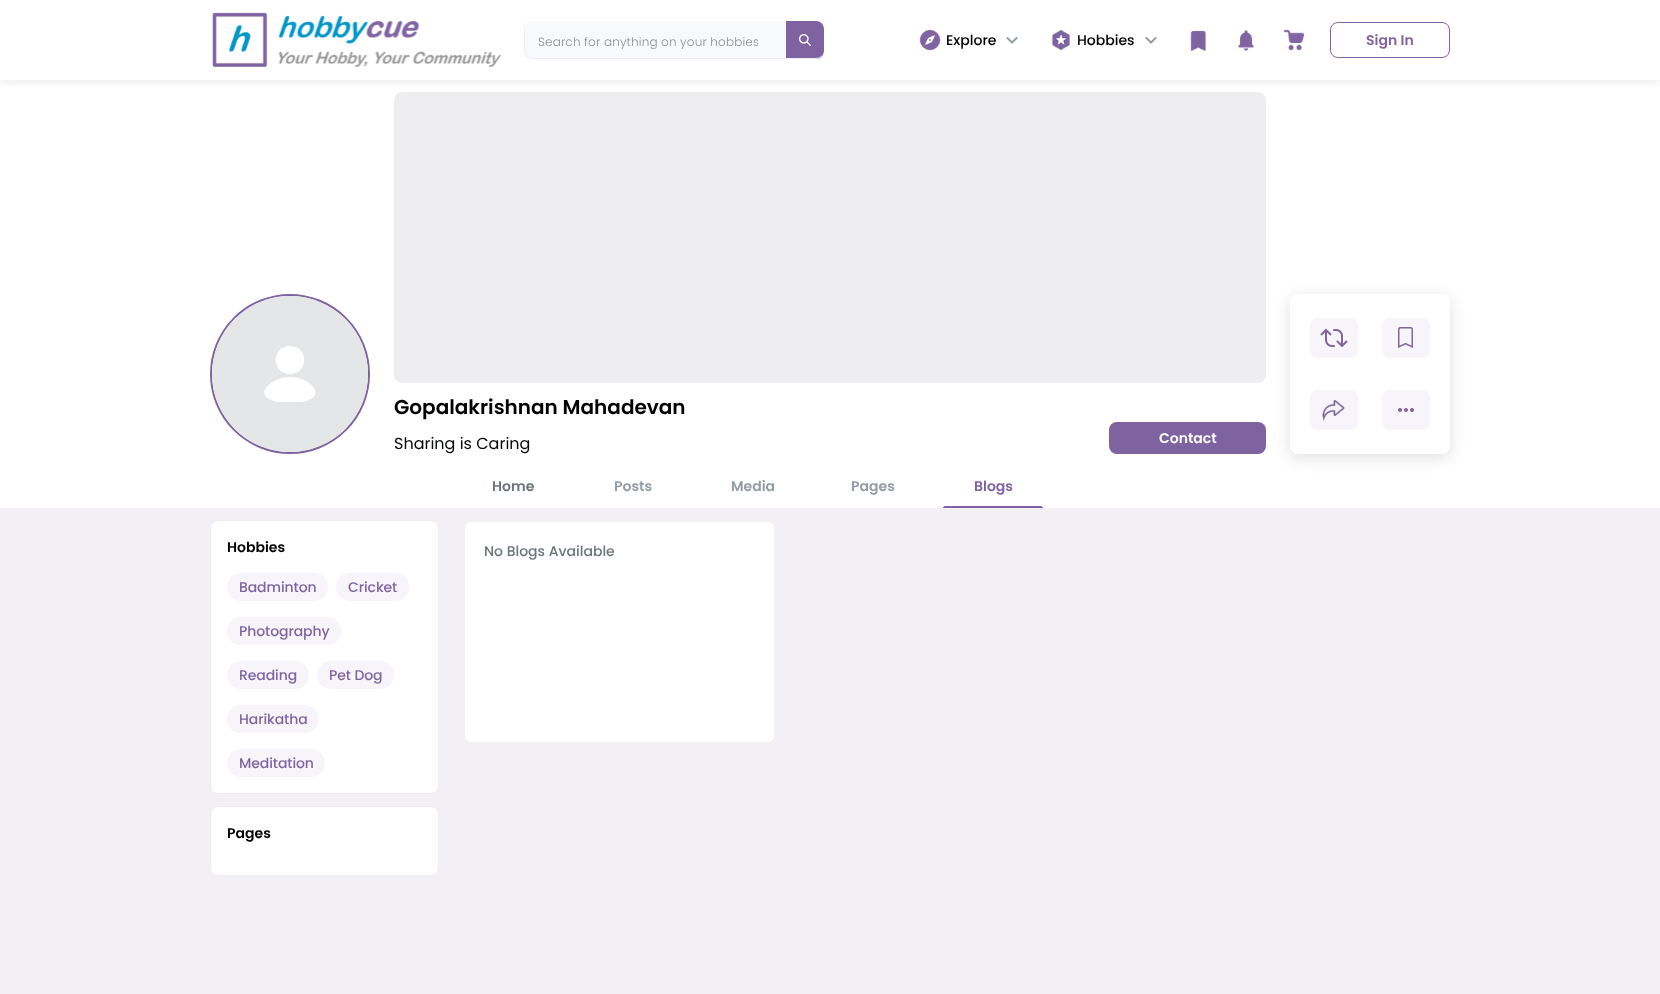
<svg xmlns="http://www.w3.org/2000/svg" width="1660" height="994">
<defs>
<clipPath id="clip1"><rect x="394" y="92" width="872" height="291" rx="8"/></clipPath>
<clipPath id="clip2"><rect x="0" y="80" width="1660" height="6"/></clipPath>
<clipPath id="clip3"><rect x="524" y="21" width="300" height="38" rx="8"/></clipPath>
<clipPath id="clip4"><rect x="538" y="33" width="220" height="18"/></clipPath>
</defs>
<rect width="100%" height="100%" fill="#fff"/>
<rect x="1109" y="422" width="157" height="32" rx="8" fill="#7f63a1"/>
<rect x="1290" y="298" width="160" height="160" rx="8" fill="#0000001f" filter="blur(8px)"/>
<rect x="394" y="92" width="872" height="291" rx="8" fill="#f7f5f9"/>
<g clip-path="url(#clip1)">
<g clip-path="url(#clip1)">
<rect x="394" y="92" width="872" height="296" rx="8" fill="#eeedf0"/>
</g>
</g>
<g clip-path="url(#clip2)">
<rect y="2" width="1660" height="80" fill="#00000014" filter="blur(6px)"/>
</g>
<image x="212" y="12" width="290" height="55" href="media/1.png"/>
<rect x="524" y="21" width="300" height="38" rx="8" fill="#f8f9fa"/>
<g clip-path="url(#clip3)">
<path d="M786 20h30c4.5 0 8 3.5 8 8v24c0 4.5-3.5 8-8 8h-30z" fill="#7f63a1"/>
</g>
<image x="799" y="34" width="12" height="12" href="media/2.png"/>
<g clip-path="url(#clip4)">
<text x="538" y="46" style="font-family:Poppins;font-size:12px;font-weight:300;letter-spacing:0.15px;fill:#909091">Search for anything on your hobbies</text>
</g>
<path d="M524 29v22c0 4 4 8 8 8h284c4 0 8-4 8-8c0 4-4 7-8 7h-284c-4 0-7-3-7-7v-26z" fill="#ebedf0"/>
<image x="919" y="29" width="22" height="22" href="media/3.png"/>
<text x="946" y="45" style="font-family:Poppins;font-size:14px;font-weight:500;fill:#000">Explore</text>
<image x="1006" y="37" width="12" height="7" href="media/4.png"/>
<image x="1052" y="29" width="18" height="22" href="media/5.png"/>
<text x="1077" y="45" style="font-family:Poppins;font-size:14px;font-weight:500;fill:#000">Hobbies</text>
<image x="1145" y="37" width="12" height="7" href="media/4.png"/>
<image x="1190" y="30" width="16" height="22" href="media/6.png"/>
<image x="1238" y="30" width="16" height="21" href="media/7.png"/>
<image x="1283" y="29" width="22" height="22" href="media/8.png"/>
<rect x="1330.5" y="22.5" width="119" height="35" rx="7.5" fill="none" stroke="#7f63a1"/>
<text x="1366" y="45" style="font-family:Poppins;font-size:14px;font-weight:600;fill:#8064a2">Sign In</text>
<circle cx="290" cy="374" r="79" fill="none" stroke="#7f63a1" stroke-width="2"/>
<circle cx="290" cy="374" r="78" fill="#e4e6e7"/>
<path d="M290 377c5 0 10 1 14 3c7 3 18 13 7 19c-6 4-14 3-21 3c-7 0-15 1-21-3c-11-6 0-16 7-19c4-2 9-3 14-3zm0-31c19 0 19 28 0 28c-19 0-19-28 0-28z" fill="#fff"/>
<text x="394" y="414" style="font-family:Poppins;font-size:20px;font-weight:600;fill:#000">Gopalakrishnan Mahadevan</text>
<text x="394" y="449" style="font-family:Poppins;font-size:16px;fill:#08090a">Sharing is Caring</text>
<text x="1159" y="443" style="font-family:Poppins;font-size:14px;font-weight:600;fill:#fff">Contact</text>
<rect x="1290" y="294" width="160" height="160" rx="8" fill="#fff"/>
<rect x="1310" y="318" width="48" height="40" rx="8" fill="#f7f5f9"/>
<image x="1320" y="328" width="28" height="20" href="media/9.png"/>
<rect x="1382" y="318" width="48" height="40" rx="8" fill="#f7f5f9"/>
<image x="1398" y="327" width="15" height="21" href="media/10.png"/>
<rect x="1310" y="390" width="48" height="40" rx="8" fill="#f7f5f9"/>
<image x="1322" y="400" width="23" height="21" href="media/11.png"/>
<rect x="1382" y="390" width="48" height="40" rx="8" fill="#f7f5f9"/>
<image x="1398" y="408" width="16" height="4" href="media/12.png"/>
<text x="492" y="491" style="font-family:Poppins;font-size:14px;font-weight:600;fill:#6d747a">Home</text>
<text x="614" y="491" style="font-family:Poppins;font-size:14px;font-weight:600;fill:#939ca3">Posts</text>
<text x="731" y="491" style="font-family:Poppins;font-size:14px;font-weight:600;fill:#939ca3">Media</text>
<text x="851" y="491" style="font-family:Poppins;font-size:14px;font-weight:600;fill:#939ca3">Pages</text>
<text x="974" y="491" style="font-family:Poppins;font-size:14px;font-weight:600;fill:#8064a2">Blogs</text>
<path d="M945 506h96c1 0 2 1 2 2h-100c0-1 1-2 2-2z" fill="#8064a2"/>
<rect y="508" width="1660" height="486" fill="#f2f0f5"/>
<rect x="210.5" y="520.5" width="228" height="273" rx="7.5" fill="#fff" stroke="#ebedf0"/>
<text x="227" y="552" style="font-family:Poppins;font-size:14px;font-weight:600;fill:#000">Hobbies</text>
<rect x="227" y="573" width="101" height="28" rx="14" fill="#f7f5f9"/>
<text x="239" y="592" style="font-family:Poppins;font-size:14px;font-weight:500;letter-spacing:-0.1px;fill:#8064a2">Badminton</text>
<rect x="336" y="573" width="73" height="28" rx="14" fill="#f7f5f9"/>
<text x="348" y="592" style="font-family:Poppins;font-size:14px;font-weight:500;letter-spacing:-0.1px;fill:#8064a2">Cricket</text>
<rect x="227" y="617" width="114" height="28" rx="14" fill="#f7f5f9"/>
<text x="239" y="636" style="font-family:Poppins;font-size:14px;font-weight:500;letter-spacing:-0.1px;fill:#8064a2">Photography</text>
<rect x="227" y="661" width="82" height="28" rx="14" fill="#f7f5f9"/>
<text x="239" y="680" style="font-family:Poppins;font-size:14px;font-weight:500;letter-spacing:-0.1px;fill:#8064a2">Reading</text>
<rect x="317" y="661" width="77" height="28" rx="14" fill="#f7f5f9"/>
<text x="329" y="680" style="font-family:Poppins;font-size:14px;font-weight:500;letter-spacing:-0.1px;fill:#8064a2">Pet Dog</text>
<rect x="227" y="705" width="92" height="28" rx="14" fill="#f7f5f9"/>
<text x="239" y="724" style="font-family:Poppins;font-size:14px;font-weight:500;letter-spacing:-0.1px;fill:#8064a2">Harikatha</text>
<rect x="227" y="749" width="98" height="28" rx="14" fill="#f7f5f9"/>
<text x="239" y="768" style="font-family:Poppins;font-size:14px;font-weight:500;letter-spacing:-0.1px;fill:#8064a2">Meditation</text>
<rect x="210.5" y="806.5" width="228" height="69" rx="7.5" fill="#fff" stroke="#ebedf0"/>
<text x="227" y="838" style="font-family:Poppins;font-size:14px;font-weight:600;fill:#000">Pages</text>
<rect x="464" y="521" width="311" height="222" rx="7" fill="#fff" stroke="#f2f2f2" stroke-width="2"/>
<text x="484" y="556" style="font-family:Poppins;font-size:14px;font-weight:500;fill:#6d747a">No Blogs Available</text>
</svg>
